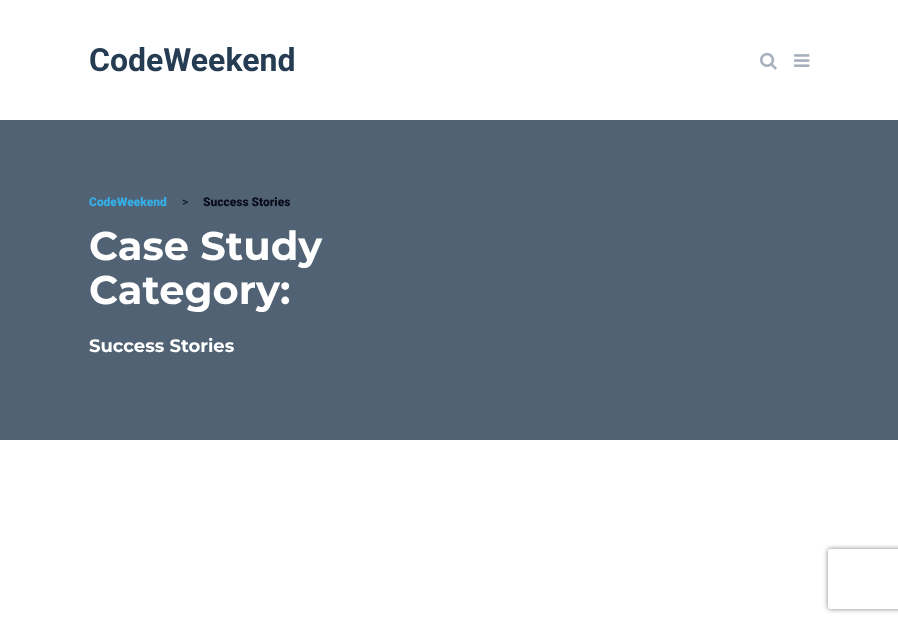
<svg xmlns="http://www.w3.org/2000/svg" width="898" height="623">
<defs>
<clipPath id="clip1"><path d="M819 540h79v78h-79zm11 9h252c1 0 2 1 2 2v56c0 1-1 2-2 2h-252c-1 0-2-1-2-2v-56c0-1 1-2 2-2z" clip-rule="evenodd"/></clipPath>
</defs>
<rect width="100%" height="100%" fill="#fff"/>
<text x="89" y="71" style="font-family:Roboto;font-size:32px;font-weight:bold;fill:#263c53">CodeWeekend</text>
<image x="760" y="52" width="17" height="18" href="media/1.png"/>
<image x="794" y="54" width="16" height="13" href="media/2.png"/>
<rect y="120" width="898" height="320" fill="#506274"/>
<text x="89" y="206" style="font-family:Roboto;font-size:12px;font-weight:900;fill:#36afe8">CodeWeekend</text>
<text x="182" y="206" style="font-family:Roboto;font-size:12px;fill:#090b1a">&gt;</text>
<text x="203" y="206" style="font-family:Roboto;font-size:12px;font-weight:900;fill:#090b1a">Success Stories</text>
<text x="89" y="260" style="font-family:Montserrat;font-size:40px;font-weight:bold;fill:#fff">Case Study</text>
<text x="89" y="304" style="font-family:Montserrat;font-size:40px;font-weight:bold;fill:#fff">Category:</text>
<text x="89" y="352" style="font-family:Montserrat;font-size:18px;font-weight:bold;fill:#fff">Success Stories</text>
<g clip-path="url(#clip1)">
<rect x="828" y="549" width="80" height="60" rx="2" fill="#808080" filter="blur(2.5px)"/>
</g>
</svg>
